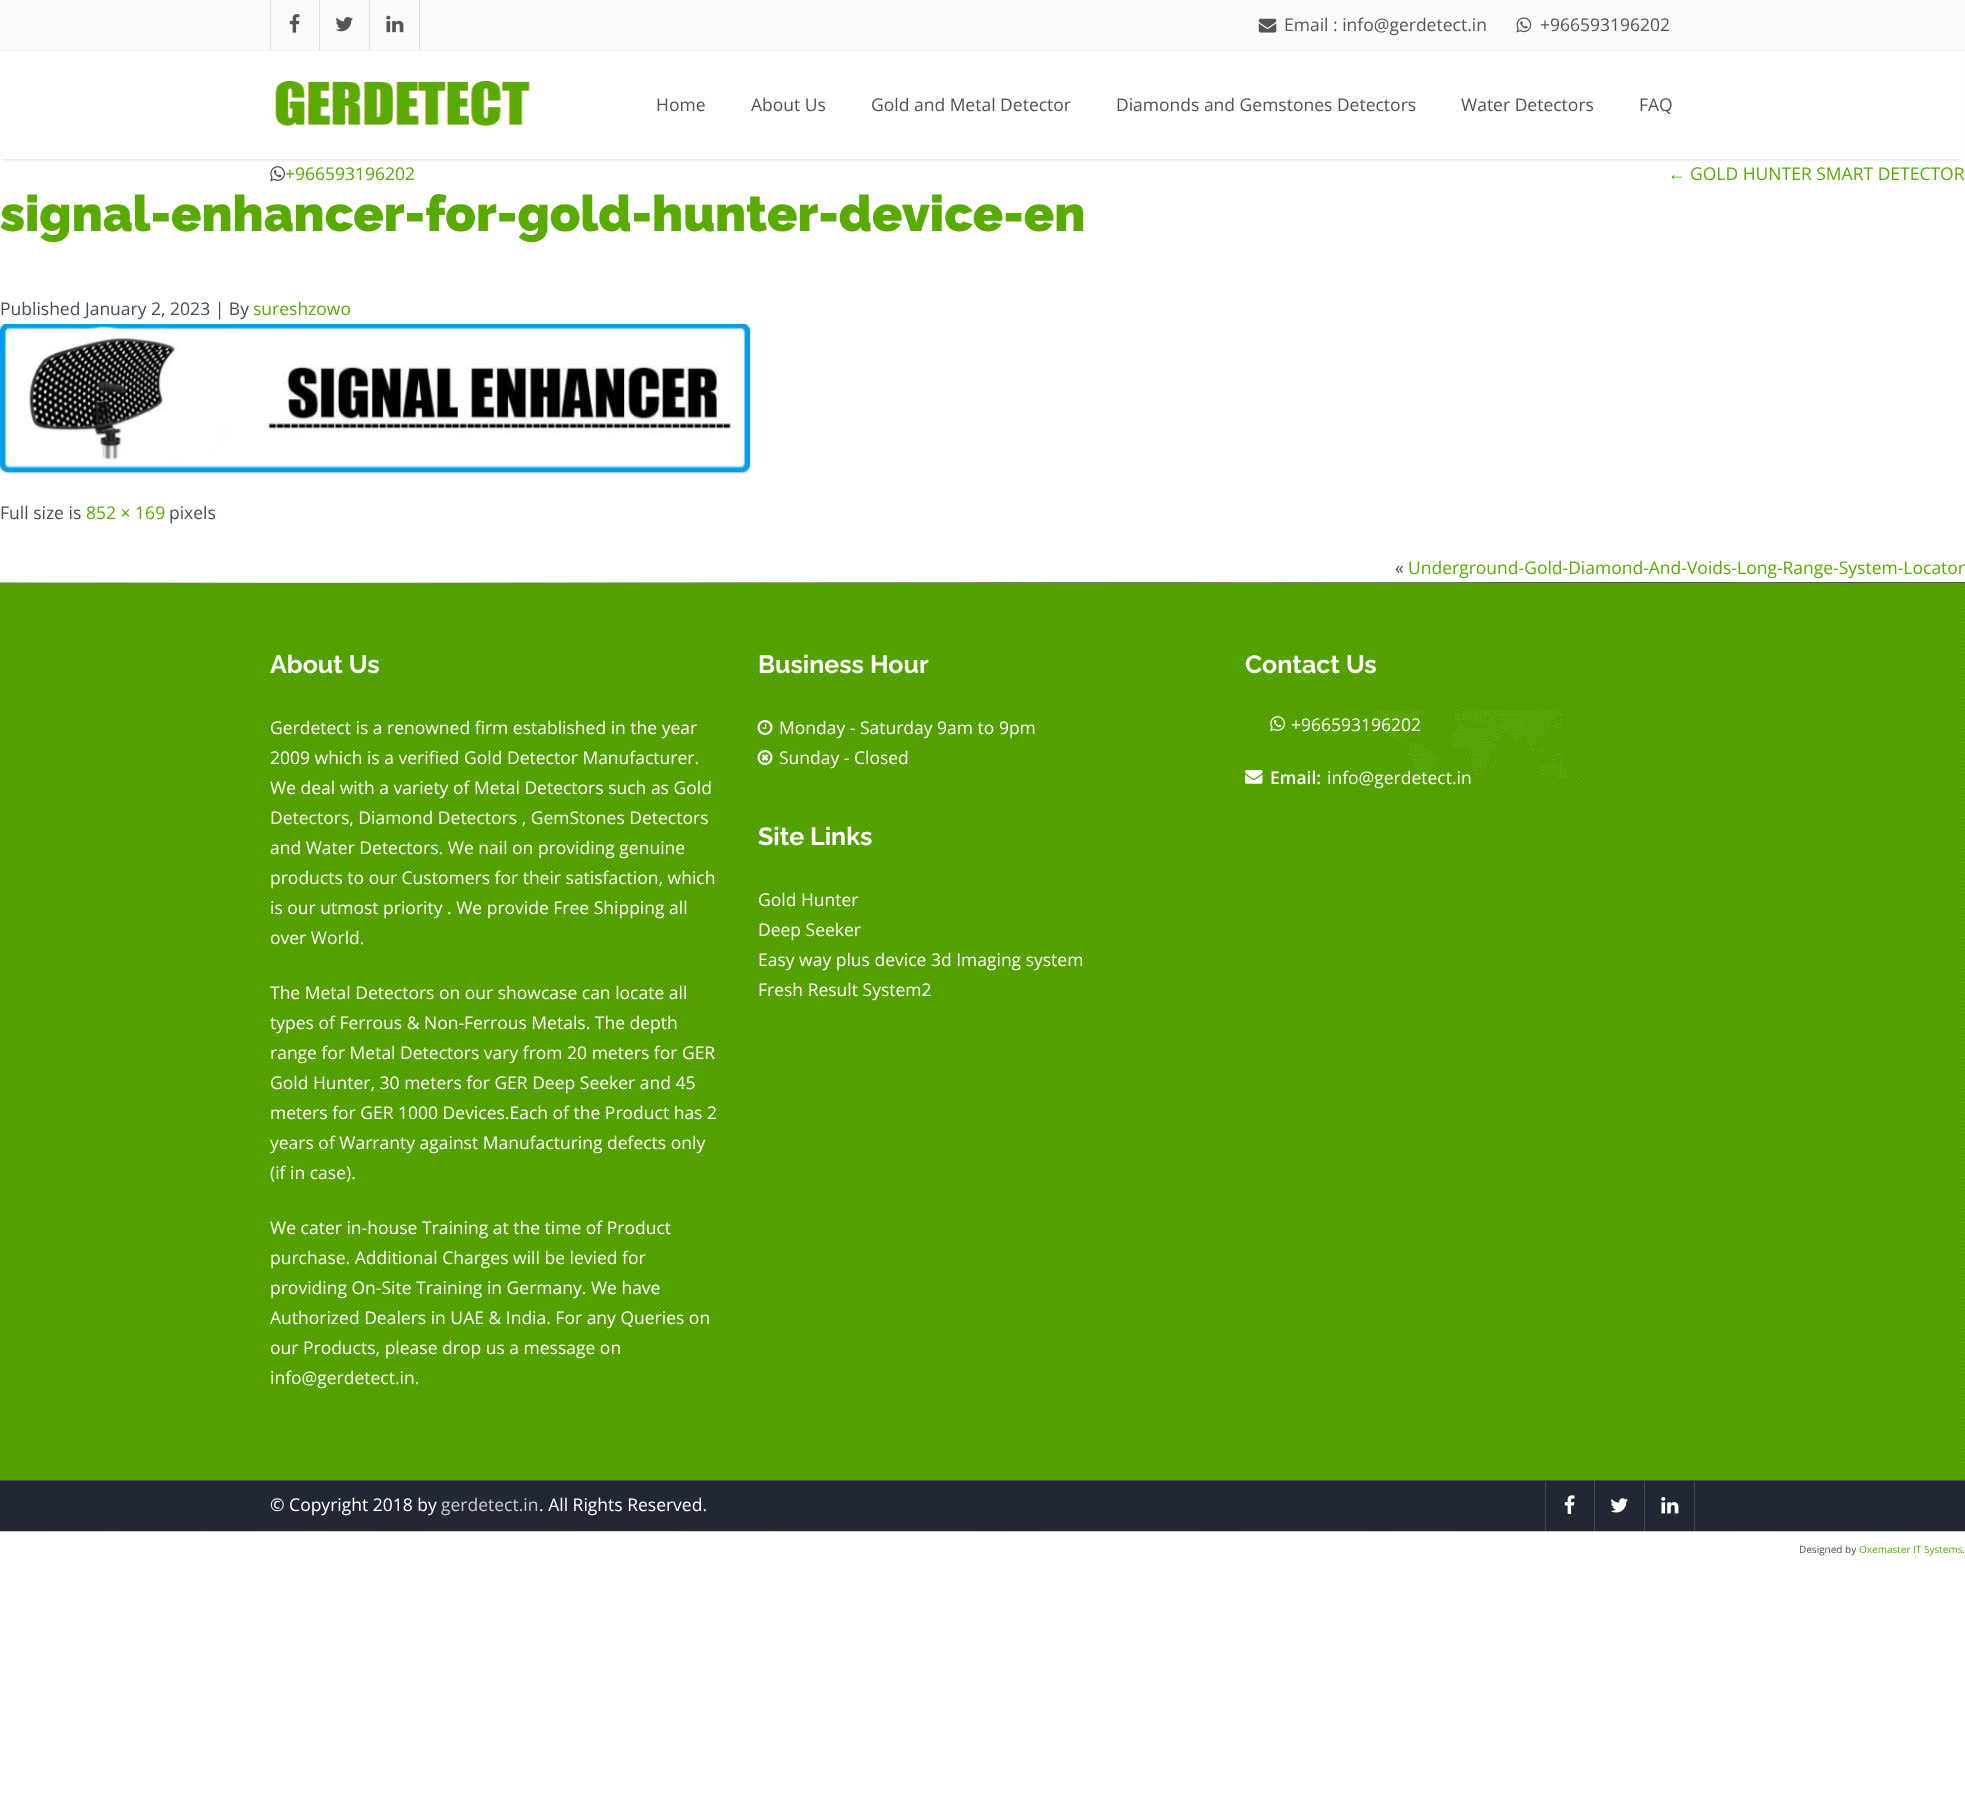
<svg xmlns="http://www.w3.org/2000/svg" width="1965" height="1819">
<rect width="100%" height="100%" fill="#fff"/>
<rect width="1965" height="50" fill="#fafafa"/>
<rect y="50" width="1965" height="1" fill="#eee"/>
<rect x="319" width="1" height="50" fill="#ddd"/>
<rect x="270" width="1" height="50" fill="#ddd"/>
<image x="289" y="14" width="11" height="19" href="media/1.png"/>
<rect x="369" width="1" height="50" fill="#ddd"/>
<image x="335" y="17" width="18" height="15" href="media/2.png"/>
<rect x="419" width="1" height="50" fill="#ddd"/>
<image x="386" y="15" width="18" height="18" href="media/3.png"/>
<image x="1258" y="18" width="19" height="15" href="media/4.png"/>
<text x="1284" y="31" style="font-family:Open Sans;font-size:17.5px;fill:#555">Email : info@gerdetect.in</text>
<image x="1516" y="17" width="16" height="16" href="media/5.png"/>
<text x="1540" y="31" style="font-family:Open Sans;font-size:17.5px;fill:#555">+966593196202</text>
<rect x="4" y="59" width="1957" height="100" fill="#00000033" filter="blur(2px)"/>
<rect x="1" y="56" width="1963" height="103" fill="#fff"/>
<text x="656" y="111" style="font-family:Open Sans;font-size:17.5px;fill:#4d5258">Home</text>
<text x="751" y="111" style="font-family:Open Sans;font-size:17.5px;fill:#4d5258">About Us</text>
<text x="871" y="111" style="font-family:Open Sans;font-size:17.5px;fill:#4d5258">Gold and Metal Detector</text>
<text x="1116" y="111" style="font-family:Open Sans;font-size:17.5px;fill:#4d5258">Diamonds and Gemstones Detectors</text>
<text x="1461" y="111" style="font-family:Open Sans;font-size:17.5px;fill:#4d5258">Water Detectors</text>
<text x="1639" y="111" style="font-family:Open Sans;font-size:17.5px;fill:#4d5258">FAQ</text>
<image x="275" y="81" width="255" height="45" href="media/6.png"/>
<image x="270" y="166" width="15" height="16" href="media/7.png"/>
<text x="285" y="180" style="font-family:Open Sans;font-size:17.5px;fill:#59ab02">+966593196202</text>
<text x="1668" y="180" style="font-family:Liberation Sans;font-size:17.5px;fill:#59ab02">←</text>
<text x="1690" y="180" style="font-family:Open Sans;font-size:17.5px;fill:#59ab02">GOLD HUNTER SMART DETECTOR</text>
<text x="0" y="231" style="font-family:Raleway;font-size:50px;font-weight:900;fill:#59ab02">signal-enhancer-for-gold-hunter-device-en</text>
<text x="0" y="315" style="font-family:Open Sans;font-size:17.5px;fill:#424e5a">Published January 2, 2023 | By</text>
<text x="253" y="315" style="font-family:Open Sans;font-size:17.5px;fill:#59ab02">sureshzowo</text>
<image x="0" y="324" width="750" height="150" href="media/8.png"/>
<text x="0" y="519" style="font-family:Open Sans;font-size:17.5px;fill:#424e5a">Full size is</text>
<text x="86" y="519" style="font-family:Open Sans;font-size:17.5px;fill:#59ab02">852 × 169</text>
<text x="169" y="519" style="font-family:Open Sans;font-size:17.5px;fill:#424e5a">pixels</text>
<text x="1395" y="574" style="font-family:Open Sans;font-size:17.5px;fill:#424e5a">«</text>
<text x="1408" y="574" style="font-family:Open Sans;font-size:17.5px;fill:#59ab02">Underground-Gold-Diamond-And-Voids-Long-Range-System-Locator</text>
<image x="0" y="582" width="1965" height="950" href="media/9.png"/>
<rect y="583" width="1965" height="897" fill="#59ab02"/>
<image x="0" y="582" width="1965" height="950" href="media/10.png"/>
<rect y="1480" width="1965" height="1" fill="#414f5a"/>
<text x="270" y="673" style="font-family:Raleway;font-size:25px;font-weight:bold;fill:#fff">About Us</text>
<text x="270" y="734" style="font-family:Open Sans;font-size:17.5px;fill:#fff">Gerdetect is a renowned firm established in the year</text>
<text x="270" y="764" style="font-family:Open Sans;font-size:17.5px;fill:#fff">2009 which is a verified Gold Detector Manufacturer.</text>
<text x="270" y="794" style="font-family:Open Sans;font-size:17.5px;fill:#fff">We deal with a variety of Metal Detectors such as Gold</text>
<text x="270" y="824" style="font-family:Open Sans;font-size:17.5px;fill:#fff">Detectors, Diamond Detectors , GemStones Detectors</text>
<text x="270" y="854" style="font-family:Open Sans;font-size:17.5px;fill:#fff">and Water Detectors. We nail on providing genuine</text>
<text x="270" y="884" style="font-family:Open Sans;font-size:17.5px;fill:#fff">products to our Customers for their satisfaction, which</text>
<text x="270" y="914" style="font-family:Open Sans;font-size:17.5px;fill:#fff">is our utmost priority . We provide Free Shipping all</text>
<text x="270" y="944" style="font-family:Open Sans;font-size:17.5px;fill:#fff">over World.</text>
<text x="270" y="999" style="font-family:Open Sans;font-size:17.5px;fill:#fff">The Metal Detectors on our showcase can locate all</text>
<text x="270" y="1029" style="font-family:Open Sans;font-size:17.5px;fill:#fff">types of Ferrous &amp; Non-Ferrous Metals. The depth</text>
<text x="270" y="1059" style="font-family:Open Sans;font-size:17.5px;fill:#fff">range for Metal Detectors vary from 20 meters for GER</text>
<text x="270" y="1089" style="font-family:Open Sans;font-size:17.5px;fill:#fff">Gold Hunter, 30 meters for GER Deep Seeker and 45</text>
<text x="270" y="1119" style="font-family:Open Sans;font-size:17.5px;fill:#fff">meters for GER 1000 Devices.Each of the Product has 2</text>
<text x="270" y="1149" style="font-family:Open Sans;font-size:17.5px;fill:#fff">years of Warranty against Manufacturing defects only</text>
<text x="270" y="1179" style="font-family:Open Sans;font-size:17.5px;fill:#fff">(if in case).</text>
<text x="270" y="1234" style="font-family:Open Sans;font-size:17.5px;fill:#fff">We cater in-house Training at the time of Product</text>
<text x="270" y="1264" style="font-family:Open Sans;font-size:17.5px;fill:#fff">purchase. Additional Charges will be levied for</text>
<text x="270" y="1294" style="font-family:Open Sans;font-size:17.5px;fill:#fff">providing On-Site Training in Germany. We have</text>
<text x="270" y="1324" style="font-family:Open Sans;font-size:17.5px;fill:#fff">Authorized Dealers in UAE &amp; India. For any Queries on</text>
<text x="270" y="1354" style="font-family:Open Sans;font-size:17.5px;fill:#fff">our Products, please drop us a message on</text>
<text x="270" y="1384" style="font-family:Open Sans;font-size:17.5px;fill:#fff">info@gerdetect.in.</text>
<text x="758" y="673" style="font-family:Raleway;font-size:25px;font-weight:bold;fill:#fff">Business Hour</text>
<image x="757" y="720" width="16" height="15" href="media/11.png"/>
<text x="779" y="734" style="font-family:Open Sans;font-size:17.5px;fill:#fff">Monday - Saturday 9am to 9pm</text>
<image x="757" y="750" width="16" height="15" href="media/12.png"/>
<text x="779" y="764" style="font-family:Open Sans;font-size:17.5px;fill:#fff">Sunday - Closed</text>
<text x="1245" y="673" style="font-family:Raleway;font-size:25px;font-weight:bold;fill:#fff">Contact Us</text>
<image x="1375" y="711" width="209" height="82" href="media/13.png"/>
<image x="1270" y="716" width="15" height="16" href="media/14.png"/>
<text x="1291" y="731" style="font-family:Open Sans;font-size:17.5px;fill:#fff">+966593196202</text>
<image x="1245" y="770" width="18" height="14" href="media/15.png"/>
<text x="1270" y="784" style="font-family:Open Sans;font-size:17.5px;font-weight:600;fill:#fff">Email:</text>
<text x="1327" y="784" style="font-family:Open Sans;font-size:17.5px;fill:#fff">info@gerdetect.in</text>
<text x="758" y="845" style="font-family:Raleway;font-size:25px;font-weight:bold;fill:#fff">Site Links</text>
<text x="758" y="906" style="font-family:Open Sans;font-size:17.5px;fill:#fff">Gold Hunter</text>
<text x="758" y="936" style="font-family:Open Sans;font-size:17.5px;fill:#fff">Deep Seeker</text>
<text x="758" y="966" style="font-family:Open Sans;font-size:17.5px;fill:#fff">Easy way plus device 3d Imaging system</text>
<text x="758" y="996" style="font-family:Open Sans;font-size:17.5px;fill:#fff">Fresh Result System2</text>
<rect y="1481" width="1965" height="50" fill="#212733"/>
<text x="270" y="1511" style="font-family:Open Sans;font-size:17.5px;fill:#fff">© Copyright 2018 by</text>
<text x="441" y="1511" style="font-family:Open Sans;font-size:17.5px;fill:#ccc">gerdetect.in</text>
<text x="539" y="1511" style="font-family:Open Sans;font-size:17.5px;fill:#fff">. All Rights Reserved.</text>
<rect x="1594" y="1481" width="1" height="50" fill="#414f5a"/>
<rect x="1545" y="1481" width="1" height="50" fill="#414f5a"/>
<image x="1564" y="1495" width="11" height="19" href="media/16.png"/>
<rect x="1644" y="1481" width="1" height="50" fill="#414f5a"/>
<image x="1610" y="1498" width="18" height="15" href="media/17.png"/>
<rect x="1694" y="1481" width="1" height="50" fill="#414f5a"/>
<image x="1661" y="1497" width="18" height="17" href="media/18.png"/>
<text x="1799" y="1553" style="font-family:Open Sans;font-size:10px;fill:#424e5a">Designed by</text>
<text x="1859" y="1553" style="font-family:Open Sans;font-size:10px;fill:#59ab02">Oxemaster IT Systems</text>
<text x="1962" y="1553" style="font-family:Open Sans;font-size:10px;fill:#424e5a">.</text>
</svg>
